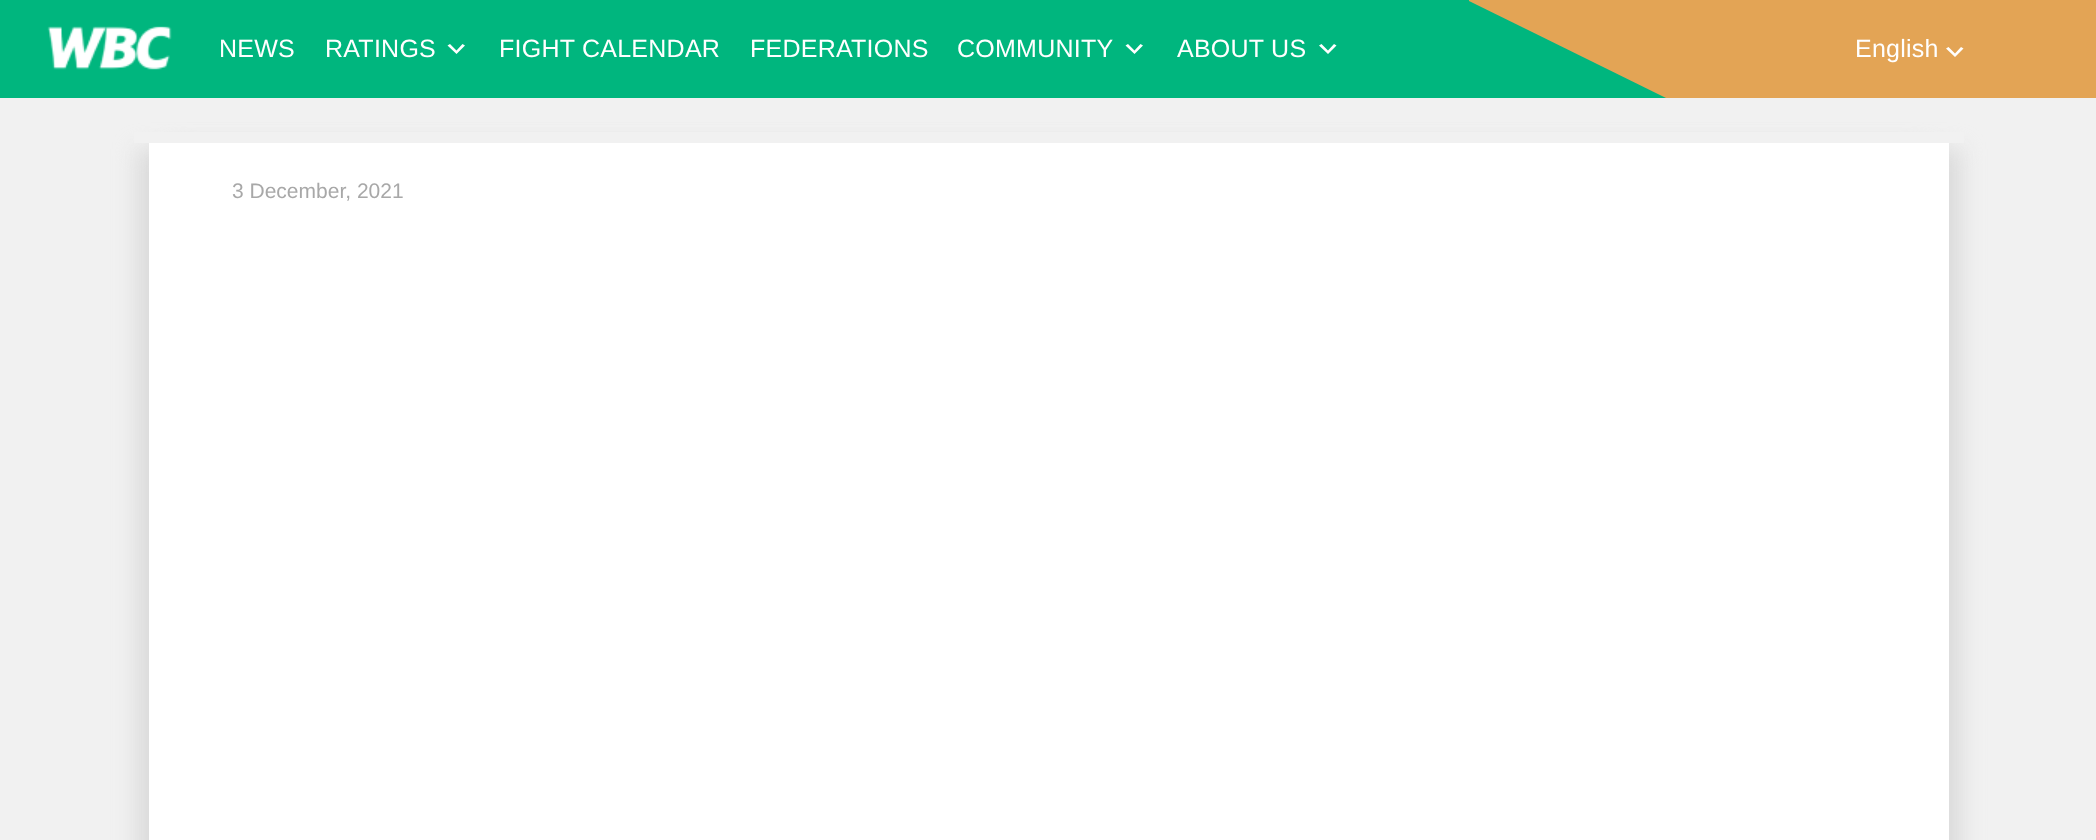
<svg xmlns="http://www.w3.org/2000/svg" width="2096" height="840">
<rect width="100%" height="100%" fill="#f1f1f1"/>
<rect x="137" y="149" width="1788" height="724" fill="#dadada" filter="blur(11px)"/>
<rect x="173" y="149" width="1788" height="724" fill="#dadada" filter="blur(11px)"/>
<rect x="134" y="132" width="1830" height="11" fill="#f1f1f1"/>
<rect width="1666" height="98" fill="#00b67e"/>
<path d="M1469 0h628v98h-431l-197-97z" fill="#e3a455"/>
<image x="47" y="26" width="125" height="44" href="media/1.png"/>
<text x="219" y="57" style="font-family:Liberation Sans;font-size:25px;letter-spacing:0.25px;fill:#fff">NEWS</text>
<text x="325" y="57" style="font-family:Liberation Sans;font-size:25px;letter-spacing:0.25px;fill:#fff">RATINGS</text>
<path d="M450 44l6.5 6.5l6-6.5l2.5 1.5l-8.5 8.5l-9-8.5z" fill="#fff"/>
<text x="499" y="57" style="font-family:Liberation Sans;font-size:25px;letter-spacing:0.25px;fill:#fff">FIGHT CALENDAR</text>
<text x="750" y="57" style="font-family:Liberation Sans;font-size:25px;letter-spacing:0.25px;fill:#fff">FEDERATIONS</text>
<text x="957" y="57" style="font-family:Liberation Sans;font-size:25px;letter-spacing:0.25px;fill:#fff">COMMUNITY</text>
<path d="M1128 44l6.5 6.5l6-6.5l2.5 1.5l-8.5 8.5l-9-8.5z" fill="#fff"/>
<text x="1177" y="57" style="font-family:Liberation Sans;font-size:25px;letter-spacing:0.25px;fill:#fff">ABOUT US</text>
<path d="M1321.5 44l6.5 6.5l6-6.5l2.5 1.5l-8.5 8.5l-9-8.5z" fill="#fff"/>
<text x="1855" y="57" style="font-family:Liberation Sans;font-size:25px;letter-spacing:0.25px;fill:#fff">English</text>
<path d="M1948.5 47l6.5 6.5l6-6.5l2.5 1.5l-8.5 8.5l-9-8.5z" fill="#fff"/>
<rect x="149" y="143" width="1800" height="697" fill="#fff"/>
<text x="232" y="198" style="font-family:Liberation Sans;font-size:21px;fill:#a8a8a8">3 December, 2021</text>
</svg>
